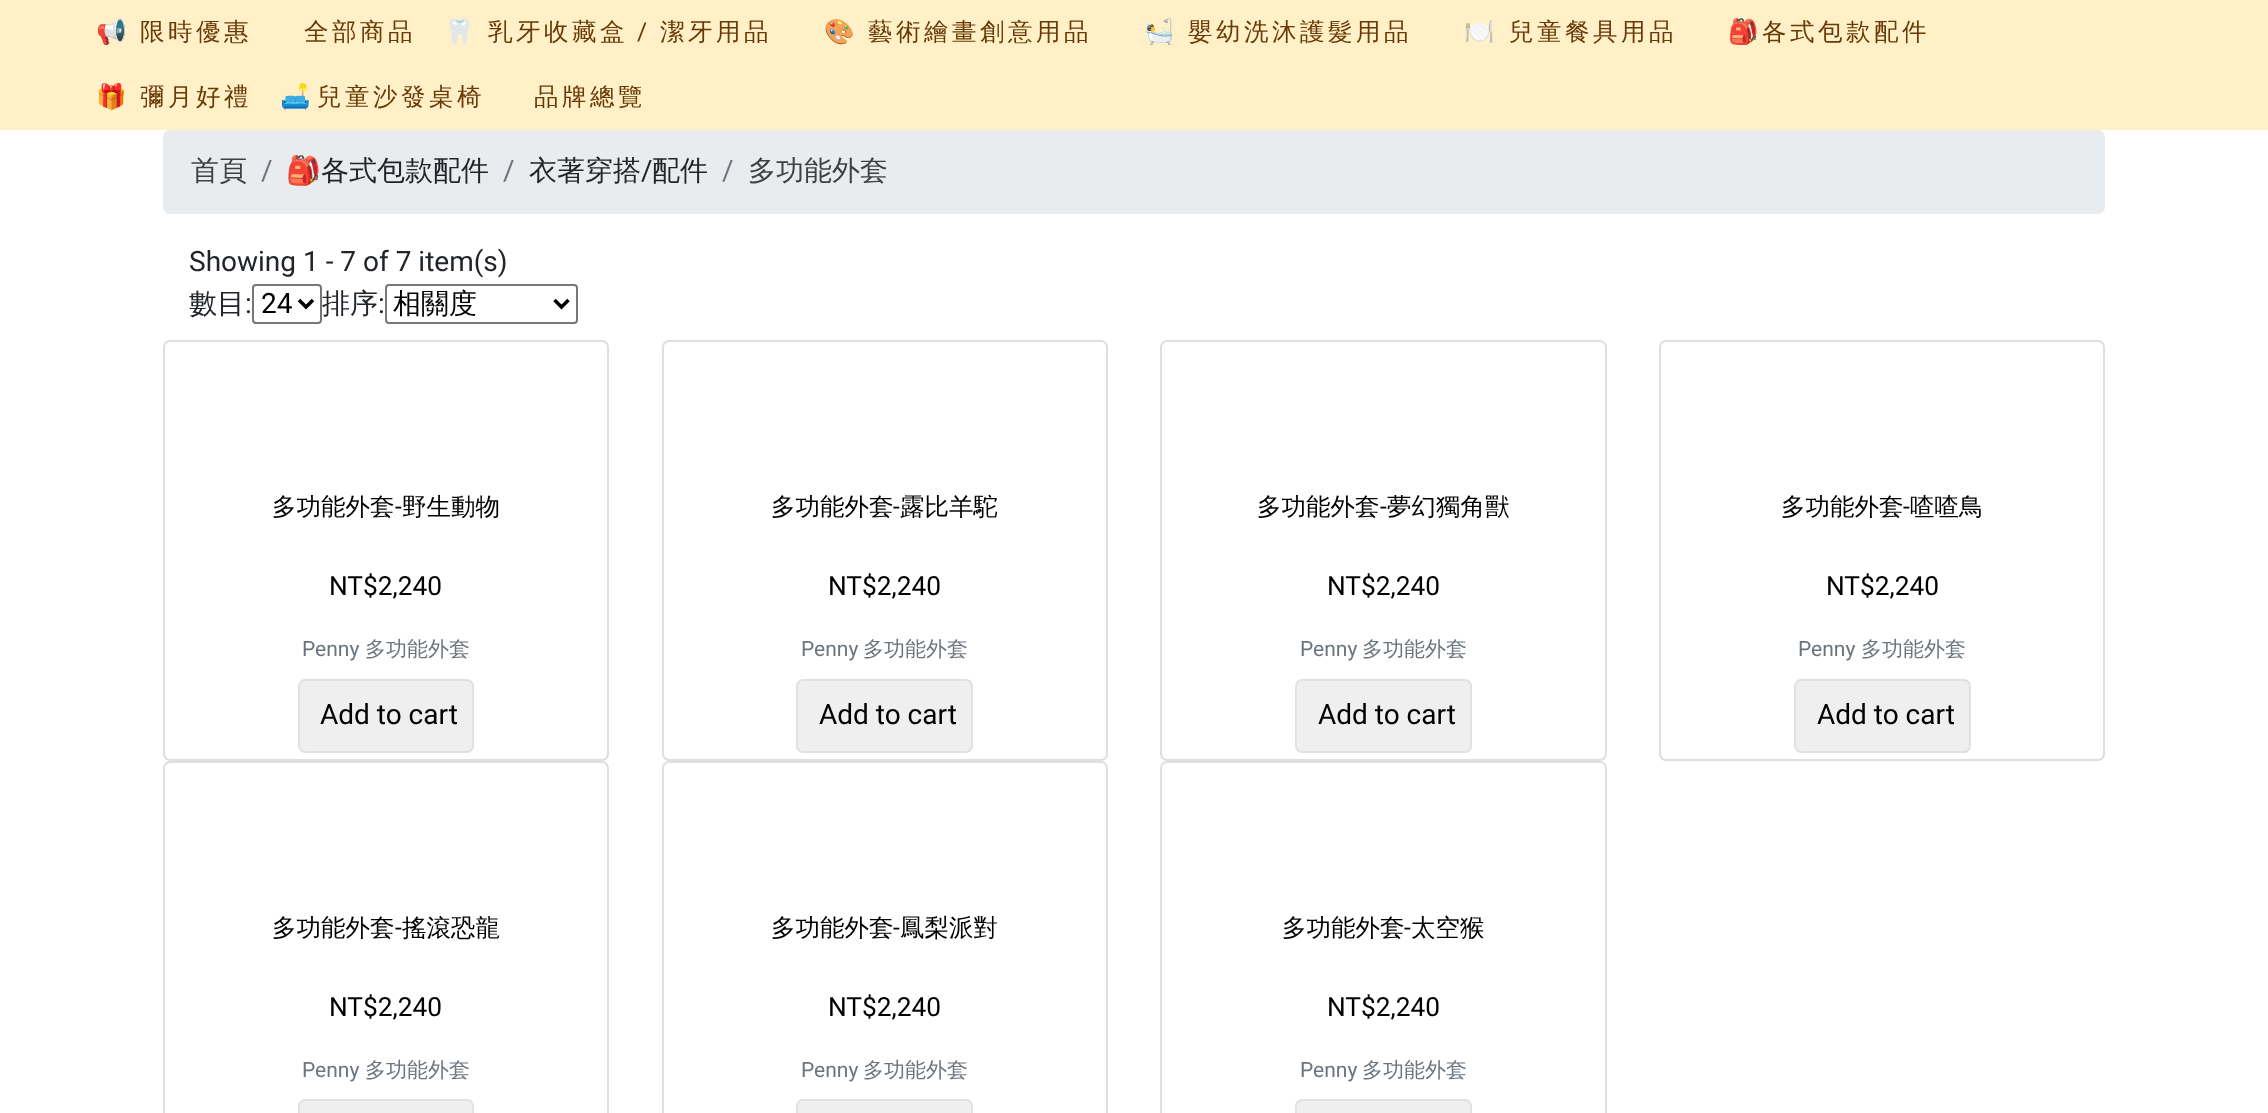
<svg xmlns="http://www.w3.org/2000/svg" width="2268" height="1113">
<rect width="100%" height="100%" fill="#fff"/>
<rect width="2268" height="130" fill="#fff0c8"/>
<text x="96" y="40" style="font-family:Noto Color Emoji;font-size:24.5px;letter-spacing:3.5px;fill:#6a3906">📢</text>
<text x="140" y="40" style="font-family:WenQuanYi Zen Hei;font-size:24.5px;font-weight:500;letter-spacing:3.5px;fill:#6a3906">限時優惠</text>
<text x="304" y="40" style="font-family:WenQuanYi Zen Hei;font-size:24.5px;font-weight:500;letter-spacing:3.5px;fill:#6a3906">全部商品</text>
<text x="444" y="40" style="font-family:Noto Color Emoji;font-size:24.5px;letter-spacing:3.5px;fill:#6a3906">🦷</text>
<text x="488" y="40" style="font-family:WenQuanYi Zen Hei;font-size:24.5px;font-weight:500;letter-spacing:3.5px;fill:#6a3906">乳牙收藏盒</text>
<text x="637" y="40" style="font-family:Roboto;font-size:24.5px;letter-spacing:3.5px;fill:#6a3906">/</text>
<text x="660" y="40" style="font-family:WenQuanYi Zen Hei;font-size:24.5px;font-weight:500;letter-spacing:3.5px;fill:#6a3906">潔牙用品</text>
<text x="824" y="40" style="font-family:Noto Color Emoji;font-size:24.5px;letter-spacing:3.5px;fill:#6a3906">🎨</text>
<text x="868" y="40" style="font-family:WenQuanYi Zen Hei;font-size:24.5px;font-weight:500;letter-spacing:3.5px;fill:#6a3906">藝術繪畫創意用品</text>
<text x="1144" y="40" style="font-family:Noto Color Emoji;font-size:24.5px;letter-spacing:3.5px;fill:#6a3906">🛀</text>
<text x="1188" y="40" style="font-family:WenQuanYi Zen Hei;font-size:24.5px;font-weight:500;letter-spacing:3.5px;fill:#6a3906">嬰幼洗沐護髮用品</text>
<text x="1464" y="40" style="font-family:Noto Color Emoji;font-size:24.5px;letter-spacing:3.5px;fill:#6a3906">🍽️</text>
<text x="1509" y="40" style="font-family:WenQuanYi Zen Hei;font-size:24.5px;font-weight:500;letter-spacing:3.5px;fill:#6a3906">兒童餐具用品</text>
<text x="1728" y="40" style="font-family:Noto Color Emoji;font-size:24.5px;letter-spacing:3.5px;fill:#6a3906">🎒</text>
<text x="1762" y="40" style="font-family:WenQuanYi Zen Hei;font-size:24.5px;font-weight:500;letter-spacing:3.5px;fill:#6a3906">各式包款配件</text>
<text x="96" y="105" style="font-family:Noto Color Emoji;font-size:24.5px;letter-spacing:3.5px;fill:#6a3906">🎁</text>
<text x="140" y="105" style="font-family:WenQuanYi Zen Hei;font-size:24.5px;font-weight:500;letter-spacing:3.5px;fill:#6a3906">彌月好禮</text>
<text x="280" y="105" style="font-family:Noto Color Emoji;font-size:24.5px;letter-spacing:3.5px;fill:#6a3906">🛋️</text>
<text x="317" y="105" style="font-family:WenQuanYi Zen Hei;font-size:24.5px;font-weight:500;letter-spacing:3.5px;fill:#6a3906">兒童沙發桌椅</text>
<text x="534" y="105" style="font-family:WenQuanYi Zen Hei;font-size:24.5px;font-weight:500;letter-spacing:3.5px;fill:#6a3906">品牌總覽</text>
<rect x="163" y="130" width="1942" height="84" rx="7" fill="#e9ecef"/>
<text x="191" y="180" style="font-family:WenQuanYi Zen Hei;font-size:28px;font-weight:500;fill:#404040">首頁</text>
<text x="261" y="180" style="font-family:Roboto;font-size:28px;fill:#6c757d">/</text>
<text x="286" y="180" style="font-family:Noto Color Emoji;font-size:28px;fill:#212529">🎒</text>
<text x="321" y="180" style="font-family:WenQuanYi Zen Hei;font-size:28px;font-weight:500;fill:#212529">各式包款配件</text>
<text x="503" y="180" style="font-family:Roboto;font-size:28px;fill:#6c757d">/</text>
<text x="529" y="180" style="font-family:WenQuanYi Zen Hei;font-size:28px;font-weight:500;fill:#212529">衣著穿搭</text>
<text x="641" y="180" style="font-family:Roboto;font-size:28px;fill:#212529">/</text>
<text x="652" y="180" style="font-family:WenQuanYi Zen Hei;font-size:28px;font-weight:500;fill:#212529">配件</text>
<text x="722" y="180" style="font-family:Roboto;font-size:28px;fill:#6c757d">/</text>
<text x="748" y="180" style="font-family:WenQuanYi Zen Hei;font-size:28px;font-weight:500;fill:#404040">多功能外套</text>
<text x="189" y="271" style="font-family:Roboto;font-size:28px;fill:#212529">Showing 1 - 7 of 7 item(s)</text>
<text x="189" y="313" style="font-family:WenQuanYi Zen Hei;font-size:28px;font-weight:500;fill:#212529">數目</text>
<text x="245" y="313" style="font-family:Roboto;font-size:28px;fill:#212529">:</text>
<rect x="253" y="285" width="68" height="38" rx="3" fill="none" stroke="#767676" stroke-width="2"/>
<path d="M299 300l7 7l7-7" fill="none" stroke="#000" stroke-width="3.5"/>
<text x="261" y="313" style="font-family:Roboto;font-size:28px;fill:#000">24</text>
<text x="322" y="313" style="font-family:WenQuanYi Zen Hei;font-size:28px;font-weight:500;fill:#212529">排序</text>
<text x="378" y="313" style="font-family:Roboto;font-size:28px;fill:#212529">:</text>
<rect x="386" y="285" width="191" height="38" rx="3" fill="none" stroke="#767676" stroke-width="2"/>
<path d="M554.5 300l7 7l7-7" fill="none" stroke="#000" stroke-width="3.5"/>
<text x="393" y="313" style="font-family:WenQuanYi Zen Hei;font-size:28px;font-weight:500;fill:#000">相關度</text>
<rect x="164" y="341" width="444" height="419" rx="6" fill="none" stroke="#dfdfdf" stroke-width="2"/>
<text x="272" y="515" style="font-family:WenQuanYi Zen Hei;font-size:24.5px;font-weight:500;fill:#000">多功能外套</text>
<text x="395" y="515" style="font-family:Roboto;font-size:24.5px;fill:#000">-</text>
<text x="402" y="515" style="font-family:WenQuanYi Zen Hei;font-size:24.5px;font-weight:500;fill:#000">野生動物</text>
<text x="329" y="595" style="font-family:Roboto;font-size:26.25px;fill:#000">NT$2,240</text>
<text x="302" y="656" style="font-family:Roboto;font-size:21px;fill:#6c757d">Penny</text>
<text x="365" y="656" style="font-family:WenQuanYi Zen Hei;font-size:21px;font-weight:500;fill:#6c757d">多功能外套</text>
<rect x="299" y="680" width="174" height="72" rx="6" fill="#efefef" stroke="#dee2e6" stroke-width="2"/>
<text x="320" y="724" style="font-family:Roboto;font-size:28px;fill:#000">Add to cart</text>
<rect x="663" y="341" width="444" height="419" rx="6" fill="none" stroke="#dfdfdf" stroke-width="2"/>
<text x="771" y="515" style="font-family:WenQuanYi Zen Hei;font-size:24.5px;font-weight:500;fill:#000">多功能外套</text>
<text x="893" y="515" style="font-family:Roboto;font-size:24.5px;fill:#000">-</text>
<text x="900" y="515" style="font-family:WenQuanYi Zen Hei;font-size:24.5px;font-weight:500;fill:#000">露比羊駝</text>
<text x="828" y="595" style="font-family:Roboto;font-size:26.25px;fill:#000">NT$2,240</text>
<text x="801" y="656" style="font-family:Roboto;font-size:21px;fill:#6c757d">Penny</text>
<text x="863" y="656" style="font-family:WenQuanYi Zen Hei;font-size:21px;font-weight:500;fill:#6c757d">多功能外套</text>
<rect x="797" y="680" width="175" height="72" rx="6" fill="#efefef" stroke="#dee2e6" stroke-width="2"/>
<text x="819" y="724" style="font-family:Roboto;font-size:28px;fill:#000">Add to cart</text>
<rect x="1161" y="341" width="445" height="419" rx="6" fill="none" stroke="#dfdfdf" stroke-width="2"/>
<text x="1257" y="515" style="font-family:WenQuanYi Zen Hei;font-size:24.5px;font-weight:500;fill:#000">多功能外套</text>
<text x="1380" y="515" style="font-family:Roboto;font-size:24.5px;fill:#000">-</text>
<text x="1387" y="515" style="font-family:WenQuanYi Zen Hei;font-size:24.5px;font-weight:500;fill:#000">夢幻獨角獸</text>
<text x="1327" y="595" style="font-family:Roboto;font-size:26.25px;fill:#000">NT$2,240</text>
<text x="1300" y="656" style="font-family:Roboto;font-size:21px;fill:#6c757d">Penny</text>
<text x="1362" y="656" style="font-family:WenQuanYi Zen Hei;font-size:21px;font-weight:500;fill:#6c757d">多功能外套</text>
<rect x="1296" y="680" width="175" height="72" rx="6" fill="#efefef" stroke="#dee2e6" stroke-width="2"/>
<text x="1318" y="724" style="font-family:Roboto;font-size:28px;fill:#000">Add to cart</text>
<rect x="1660" y="341" width="444" height="419" rx="6" fill="none" stroke="#dfdfdf" stroke-width="2"/>
<text x="1781" y="515" style="font-family:WenQuanYi Zen Hei;font-size:24.5px;font-weight:500;fill:#000">多功能外套</text>
<text x="1903" y="515" style="font-family:Roboto;font-size:24.5px;fill:#000">-</text>
<text x="1910" y="515" style="font-family:WenQuanYi Zen Hei;font-size:24.5px;font-weight:500;fill:#000">喳喳鳥</text>
<text x="1826" y="595" style="font-family:Roboto;font-size:26.25px;fill:#000">NT$2,240</text>
<text x="1798" y="656" style="font-family:Roboto;font-size:21px;fill:#6c757d">Penny</text>
<text x="1861" y="656" style="font-family:WenQuanYi Zen Hei;font-size:21px;font-weight:500;fill:#6c757d">多功能外套</text>
<rect x="1795" y="680" width="175" height="72" rx="6" fill="#efefef" stroke="#dee2e6" stroke-width="2"/>
<text x="1817" y="724" style="font-family:Roboto;font-size:28px;fill:#000">Add to cart</text>
<rect x="164" y="762" width="444" height="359" rx="6" fill="none" stroke="#dfdfdf" stroke-width="2"/>
<text x="272" y="936" style="font-family:WenQuanYi Zen Hei;font-size:24.5px;font-weight:500;fill:#000">多功能外套</text>
<text x="395" y="936" style="font-family:Roboto;font-size:24.5px;fill:#000">-</text>
<text x="402" y="936" style="font-family:WenQuanYi Zen Hei;font-size:24.5px;font-weight:500;fill:#000">搖滾恐龍</text>
<text x="329" y="1016" style="font-family:Roboto;font-size:26.25px;fill:#000">NT$2,240</text>
<text x="302" y="1077" style="font-family:Roboto;font-size:21px;fill:#6c757d">Penny</text>
<text x="365" y="1077" style="font-family:WenQuanYi Zen Hei;font-size:21px;font-weight:500;fill:#6c757d">多功能外套</text>
<rect x="299" y="1100" width="174" height="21" rx="6" fill="#efefef" stroke="#dee2e6" stroke-width="2"/>
<rect x="663" y="762" width="444" height="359" rx="6" fill="none" stroke="#dfdfdf" stroke-width="2"/>
<text x="771" y="936" style="font-family:WenQuanYi Zen Hei;font-size:24.5px;font-weight:500;fill:#000">多功能外套</text>
<text x="893" y="936" style="font-family:Roboto;font-size:24.5px;fill:#000">-</text>
<text x="900" y="936" style="font-family:WenQuanYi Zen Hei;font-size:24.5px;font-weight:500;fill:#000">鳳梨派對</text>
<text x="828" y="1016" style="font-family:Roboto;font-size:26.25px;fill:#000">NT$2,240</text>
<text x="801" y="1077" style="font-family:Roboto;font-size:21px;fill:#6c757d">Penny</text>
<text x="863" y="1077" style="font-family:WenQuanYi Zen Hei;font-size:21px;font-weight:500;fill:#6c757d">多功能外套</text>
<rect x="797" y="1100" width="175" height="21" rx="6" fill="#efefef" stroke="#dee2e6" stroke-width="2"/>
<rect x="1161" y="762" width="445" height="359" rx="6" fill="none" stroke="#dfdfdf" stroke-width="2"/>
<text x="1282" y="936" style="font-family:WenQuanYi Zen Hei;font-size:24.5px;font-weight:500;fill:#000">多功能外套</text>
<text x="1404" y="936" style="font-family:Roboto;font-size:24.5px;fill:#000">-</text>
<text x="1411" y="936" style="font-family:WenQuanYi Zen Hei;font-size:24.5px;font-weight:500;fill:#000">太空猴</text>
<text x="1327" y="1016" style="font-family:Roboto;font-size:26.25px;fill:#000">NT$2,240</text>
<text x="1300" y="1077" style="font-family:Roboto;font-size:21px;fill:#6c757d">Penny</text>
<text x="1362" y="1077" style="font-family:WenQuanYi Zen Hei;font-size:21px;font-weight:500;fill:#6c757d">多功能外套</text>
<rect x="1296" y="1100" width="175" height="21" rx="6" fill="#efefef" stroke="#dee2e6" stroke-width="2"/>
</svg>
